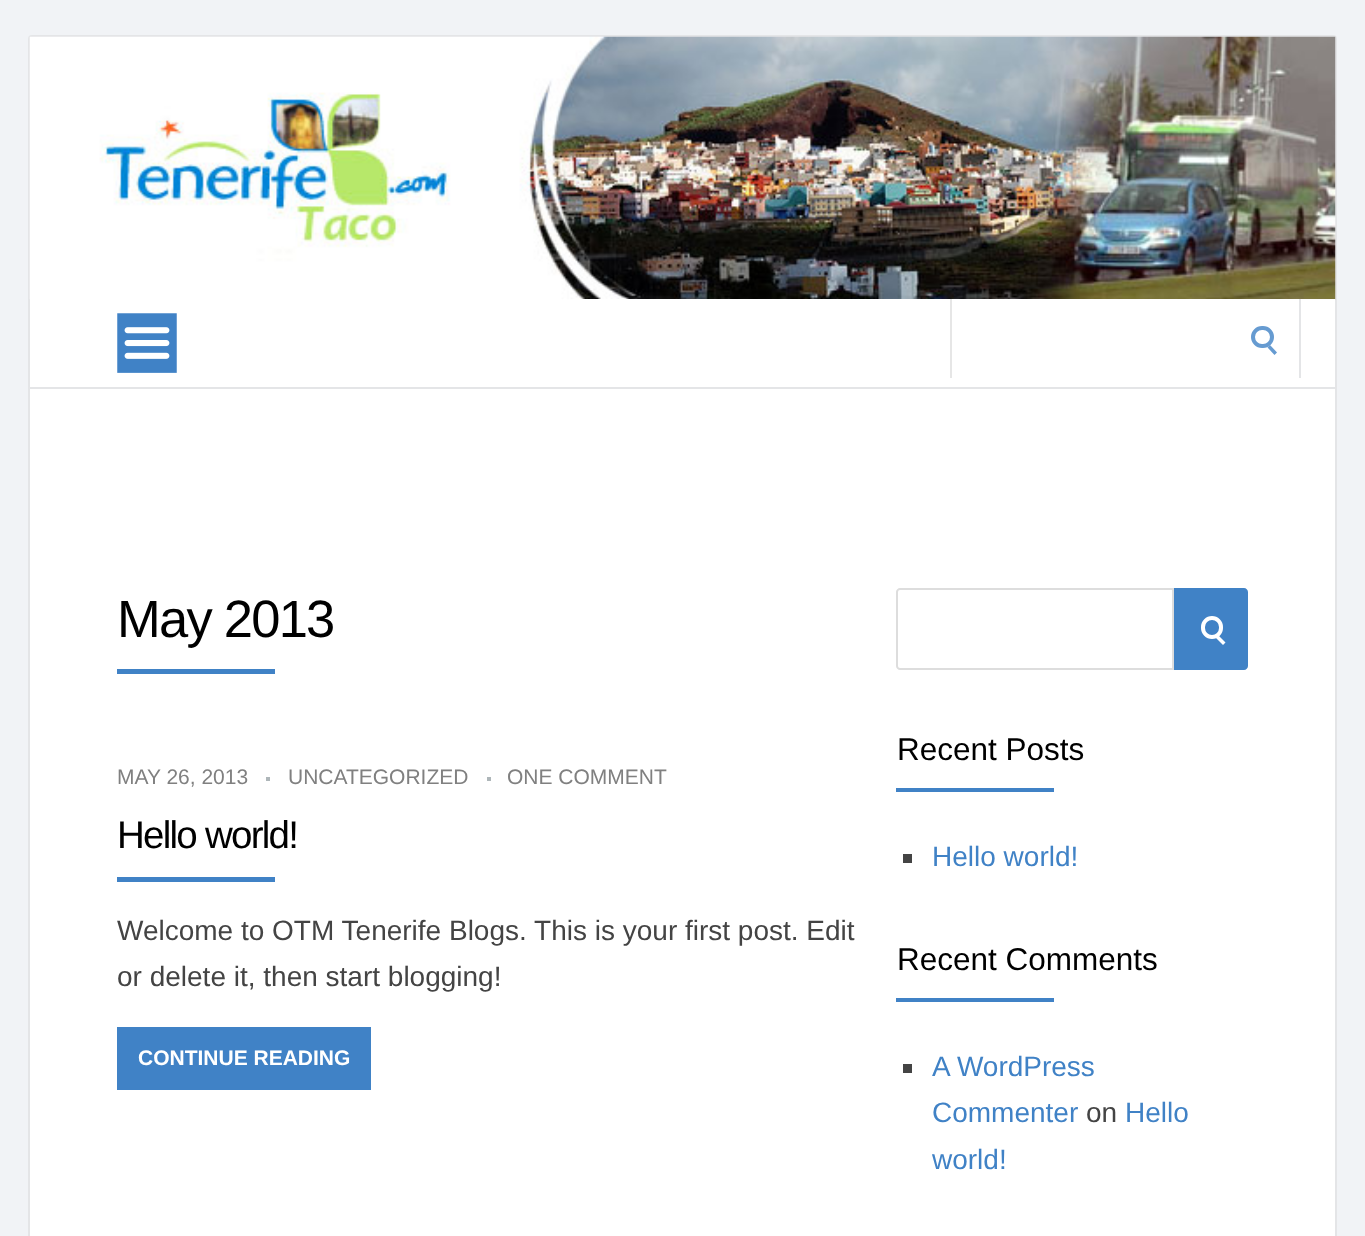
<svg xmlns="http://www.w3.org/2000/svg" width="1365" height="1236">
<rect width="100%" height="100%" fill="#f1f3f6"/>
<rect x="29" y="36" width="1307" height="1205" rx="3" fill="#fff" stroke="#e4e5e7" stroke-width="2"/>
<image x="29" y="36" width="1307" height="264" href="media/1.png"/>
<rect x="580" y="299" width="755" height="1" fill="#fff"/>
<rect x="30" y="387" width="1305" height="2" fill="#e4e5e7"/>
<image x="117" y="313" width="60" height="60" href="media/2.png"/>
<rect x="1299" y="299" width="2" height="79" fill="#e4e5e7"/>
<rect x="950" y="299" width="2" height="79" fill="#e6e6e6"/>
<rect x="1253" y="328" width="19" height="18" rx="9" fill="none" stroke="#669bd1" stroke-width="4"/>
<path d="M1267.5 347.5l2.5-2.5l7 7.5l-2.5 2.5z" fill="#669bd1"/>
<text x="117" y="637" style="font-family:Liberation Sans;font-size:52.5px;letter-spacing:-1.75px;fill:#000">May 2013</text>
<rect x="117" y="669" width="158" height="5" fill="#4082c6"/>
<text x="117" y="784" style="font-family:Liberation Sans;font-size:21px;fill:#808080">MAY 26, 2013</text>
<rect x="266" y="777" width="4" height="4" fill="#aeb6b9"/>
<text x="288" y="784" style="font-family:Liberation Sans;font-size:21px;fill:#808080">UNCATEGORIZED</text>
<rect x="487" y="777" width="4" height="4" fill="#aeb6b9"/>
<text x="507" y="784" style="font-family:Liberation Sans;font-size:21px;fill:#808080">ONE COMMENT</text>
<text x="117" y="848" style="font-family:Liberation Sans;font-size:38.5px;letter-spacing:-1.75px;fill:#000">Hello world!</text>
<rect x="117" y="877" width="158" height="5" fill="#4082c6"/>
<text x="117" y="940" style="font-family:Liberation Sans;font-size:28px;fill:#444">Welcome to OTM Tenerife Blogs. This is your first post. Edit</text>
<text x="117" y="986" style="font-family:Liberation Sans;font-size:28px;fill:#444">or delete it, then start blogging!</text>
<rect x="117" y="1027" width="254" height="63" fill="#4082c6"/>
<text x="138" y="1065" style="font-family:Liberation Sans;font-size:21px;font-weight:bold;fill:#fff">CONTINUE READING</text>
<path d="M900 589h273v80h-273c-1.5 0-3-1.5-3-3v-74c0-1.5 1.5-3 3-3z" fill="none" stroke="#ddd" stroke-width="2"/>
<path d="M1174 588h70c2 0 4 2 4 4v74c0 2-2 4-4 4h-70z" fill="#4082c6"/>
<rect x="1203" y="618" width="18" height="19" rx="9" fill="none" stroke="#fff" stroke-width="4"/>
<path d="M1215.5 637.5l2.5-2.5l7.5 7.5l-2.5 2.5z" fill="#fff"/>
<text x="897" y="760" style="font-family:Liberation Sans;font-size:31.5px;fill:#000">Recent Posts</text>
<rect x="896" y="788" width="158" height="4" fill="#4082c6"/>
<rect x="903" y="854" width="9" height="9" fill="#444"/>
<text x="932" y="866" style="font-family:Liberation Sans;font-size:28px;fill:#4082c6">Hello world!</text>
<text x="897" y="970" style="font-family:Liberation Sans;font-size:31.5px;fill:#000">Recent Comments</text>
<rect x="896" y="998" width="158" height="4" fill="#4082c6"/>
<rect x="903" y="1064" width="9" height="9" fill="#444"/>
<text x="932" y="1076" style="font-family:Liberation Sans;font-size:28px;fill:#4082c6">A WordPress</text>
<text x="932" y="1122" style="font-family:Liberation Sans;font-size:28px;fill:#4082c6">Commenter</text>
<text x="1086" y="1122" style="font-family:Liberation Sans;font-size:28px;fill:#444">on</text>
<text x="1125" y="1122" style="font-family:Liberation Sans;font-size:28px;fill:#4082c6">Hello</text>
<text x="932" y="1169" style="font-family:Liberation Sans;font-size:28px;fill:#4082c6">world!</text>
</svg>
